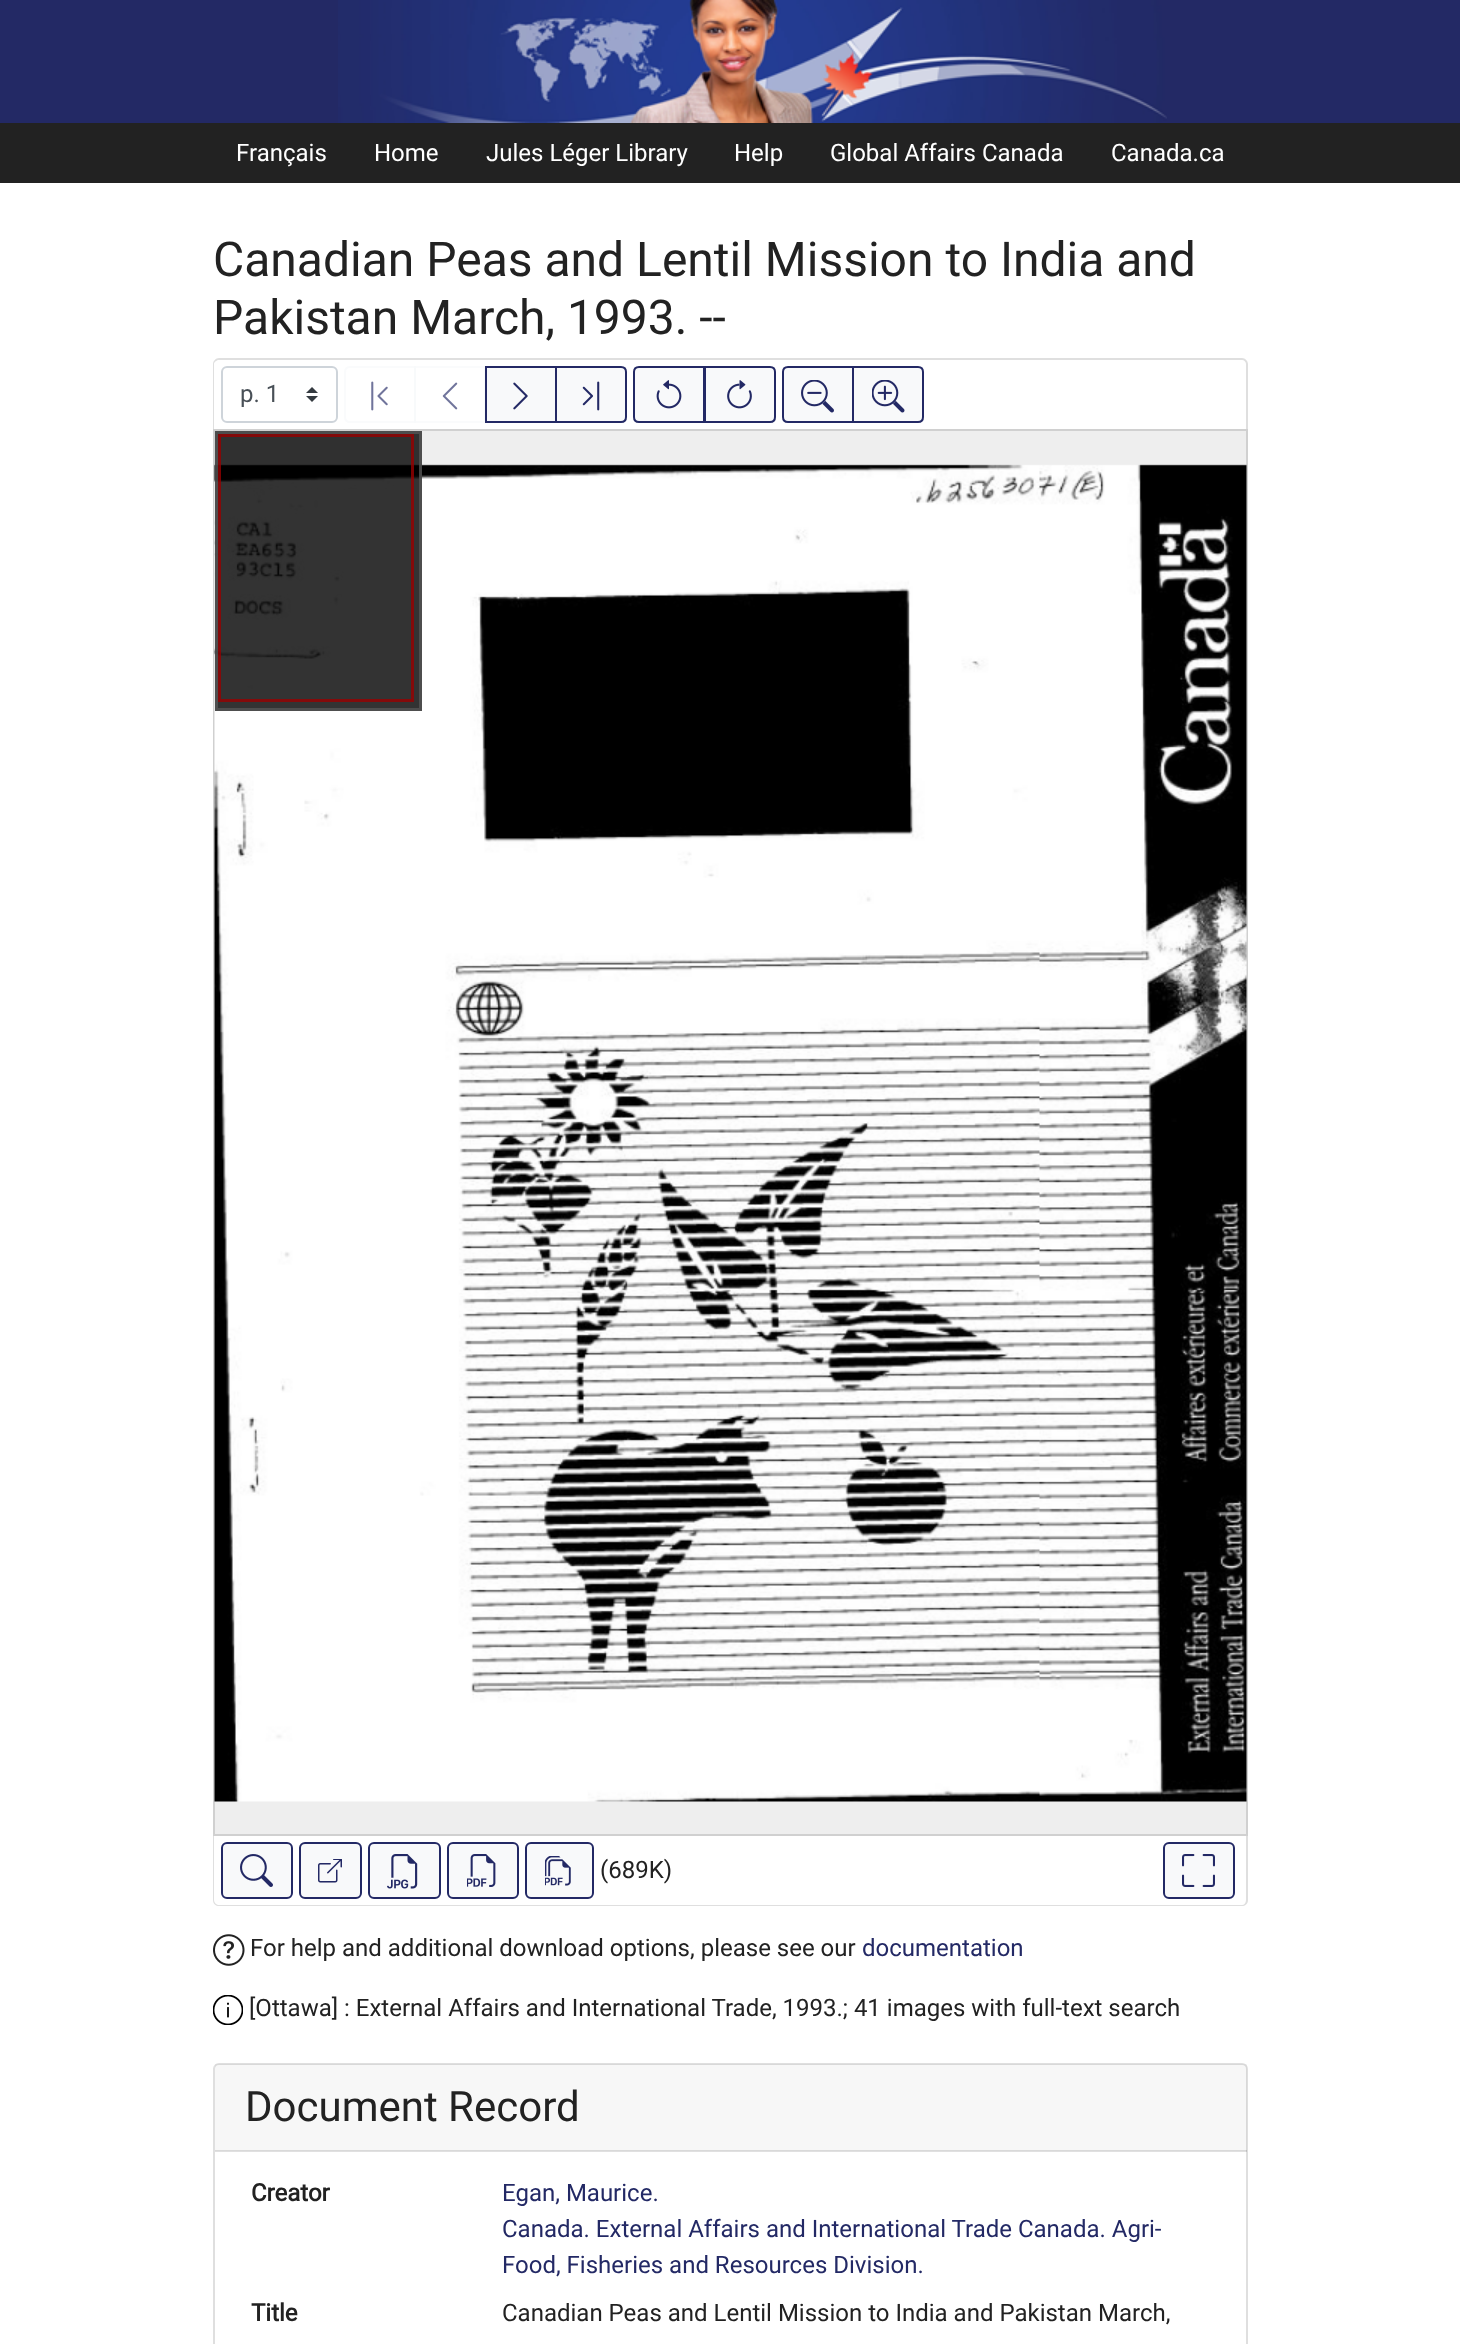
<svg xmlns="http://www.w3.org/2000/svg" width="1460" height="2344">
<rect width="100%" height="100%" fill="#fff"/>
<rect width="1460" height="123" fill="#232965"/>
<image x="338" y="0" width="829" height="123" href="media/1.png"/>
<rect y="123" width="1460" height="60" fill="#222"/>
<text x="236" y="161" style="font-family:Roboto;font-size:24px;fill:#fff">Français</text>
<text x="374" y="161" style="font-family:Roboto;font-size:24px;fill:#fff">Home</text>
<text x="486" y="161" style="font-family:Roboto;font-size:24px;fill:#fff">Jules Léger Library</text>
<text x="734" y="161" style="font-family:Roboto;font-size:24px;fill:#fff">Help</text>
<text x="830" y="161" style="font-family:Roboto;font-size:24px;fill:#fff">Global Affairs Canada</text>
<text x="1111" y="161" style="font-family:Roboto;font-size:24px;fill:#fff">Canada.ca</text>
<text x="213" y="276" style="font-family:Roboto;font-size:48px;fill:#222">Canadian Peas and Lentil Mission to India and</text>
<text x="213" y="334" style="font-family:Roboto;font-size:48px;fill:#222">Pakistan March, 1993. --</text>
<path d="M219 358h1023c3 0 6 3 6 6v65h-1035v-65c0-3 3-6 6-6zm0 2h1023c2 0 4 2 4 4v65h-1032v-65c0-2 3-4 5-4z" fill="#dfdfdf" fill-rule="evenodd"/>
<image x="306" y="387" width="12" height="15" href="media/2.png"/>
<rect x="222" y="367" width="115" height="55" rx="5" fill="none" stroke="#ced4da" stroke-width="2"/>
<text x="240" y="402" style="font-family:Roboto;font-size:24px;fill:#495057">p. 1</text>
<path d="M350 367h65v55h-65c-3 0-5-2-5-5v-45c0-3 2-5 5-5z" fill="none" stroke="#fafbfc" stroke-width="2"/>
<image x="371" y="381" width="17" height="30" href="media/3.png"/>
<rect x="415" y="367" width="70" height="55" fill="none" stroke="#f8f9faa6" stroke-width="2"/>
<image x="442" y="382" width="16" height="28" href="media/4.png"/>
<rect x="486" y="367" width="70" height="55" fill="#f8f9fa" stroke="#232965" stroke-width="2"/>
<image x="513" y="382" width="15" height="28" href="media/5.png"/>
<path d="M556 367h65c3 0 5 2 5 5v45c0 3-2 5-5 5h-65z" fill="#f8f9fa" stroke="#232965" stroke-width="2"/>
<image x="582" y="381" width="18" height="30" href="media/6.png"/>
<path d="M639 367h65v55h-65c-3 0-5-2-5-5v-45c0-3 2-5 5-5z" fill="#f8f9fa" stroke="#232965" stroke-width="2"/>
<image x="656" y="380" width="26" height="29" href="media/7.png"/>
<path d="M705 367h65c3 0 5 2 5 5v45c0 3-2 5-5 5h-65z" fill="#f8f9fa" stroke="#232965" stroke-width="2"/>
<image x="727" y="380" width="25" height="29" href="media/8.png"/>
<path d="M788 367h65v55h-65c-3 0-5-2-5-5v-45c0-3 2-5 5-5z" fill="#f8f9fa" stroke="#232965" stroke-width="2"/>
<image x="801" y="380" width="33" height="33" href="media/9.png"/>
<path d="M853 367h65c3 0 5 2 5 5v45c0 3-2 5-5 5h-65z" fill="#f8f9fa" stroke="#232965" stroke-width="2"/>
<image x="872" y="380" width="33" height="33" href="media/10.png"/>
<rect x="214" y="430" width="1033" height="1405" fill="#eee" stroke="#d0d0d0" stroke-width="2"/>
<image x="214" y="464" width="1033" height="1338" href="media/11.png"/>
<rect x="215" y="431" width="207" height="280" fill="#000000cc"/>
<rect x="216.5" y="432.5" width="204" height="277" fill="none" stroke="#555555cc" stroke-width="3"/>
<rect x="219.5" y="435.5" width="193" height="265" fill="none" stroke="#990000cc" stroke-width="3"/>
<path d="M213 1836h1035v64c0 4-3 6-6 6h-1023c-3 0-6-2-6-6zm1 0h1032v64c0 3-2 5-4 5h-1023c-2 0-5-2-5-5z" fill="#dfdfdf" fill-rule="evenodd"/>
<rect x="222" y="1843" width="70" height="55" rx="5" fill="#f8f9fa" stroke="#232965" stroke-width="2"/>
<image x="240" y="1854" width="33" height="33" href="media/12.png"/>
<rect x="300" y="1843" width="61" height="55" rx="5" fill="#f8f9fa" stroke="#232965" stroke-width="2"/>
<image x="318" y="1859" width="24" height="24" href="media/13.png"/>
<rect x="369" y="1843" width="71" height="55" rx="5" fill="#f8f9fa" stroke="#232965" stroke-width="2"/>
<image x="387" y="1854" width="31" height="35" href="media/14.png"/>
<rect x="448" y="1843" width="70" height="55" rx="5" fill="#f8f9fa" stroke="#232965" stroke-width="2"/>
<image x="467" y="1854" width="29" height="33" href="media/15.png"/>
<rect x="526" y="1843" width="67" height="55" rx="5" fill="#f8f9fa" stroke="#232965" stroke-width="2"/>
<image x="545" y="1856" width="26" height="30" href="media/16.png"/>
<text x="600" y="1878" style="font-family:Roboto;font-size:24px;fill:#222">(689K)</text>
<rect x="1164" y="1843" width="70" height="55" rx="5" fill="#f8f9fa" stroke="#232965" stroke-width="2"/>
<image x="1182" y="1854" width="33" height="33" href="media/17.png"/>
<image x="213" y="1934" width="32" height="32" href="media/18.png"/>
<text x="250" y="1956" style="font-family:Roboto;font-size:24px;fill:#222">For help and additional download options, please see our</text>
<text x="862" y="1956" style="font-family:Roboto;font-size:24px;fill:#232965">documentation</text>
<image x="213" y="1995" width="30" height="30" href="media/19.png"/>
<text x="249" y="2016" style="font-family:Roboto;font-size:24px;fill:#222">[Ottawa] : External Affairs and International Trade, 1993.; 41 images with full-text search</text>
<rect x="214" y="2064" width="1033" height="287" rx="5" fill="none" stroke="#dfdfdf" stroke-width="2"/>
<rect x="215" y="2064" width="1032" height="87" fill="#00000008"/>
<rect x="215" y="2150" width="1032" height="2" fill="#0000001f"/>
<text x="245" y="2121" style="font-family:Roboto;font-size:42px;fill:#222">Document Record</text>
<text x="251" y="2201" style="font-family:Roboto;font-size:24px;font-weight:bold;fill:#222">Creator</text>
<text x="502" y="2201" style="font-family:Roboto;font-size:24px;fill:#232965">Egan, Maurice.</text>
<text x="502" y="2237" style="font-family:Roboto;font-size:24px;fill:#232965">Canada. External Affairs and International Trade Canada. Agri-</text>
<text x="502" y="2273" style="font-family:Roboto;font-size:24px;fill:#232965">Food, Fisheries and Resources Division.</text>
<text x="251" y="2321" style="font-family:Roboto;font-size:24px;font-weight:bold;fill:#222">Title</text>
<text x="502" y="2321" style="font-family:Roboto;font-size:24px;fill:#222">Canadian Peas and Lentil Mission to India and Pakistan March,</text>
</svg>
